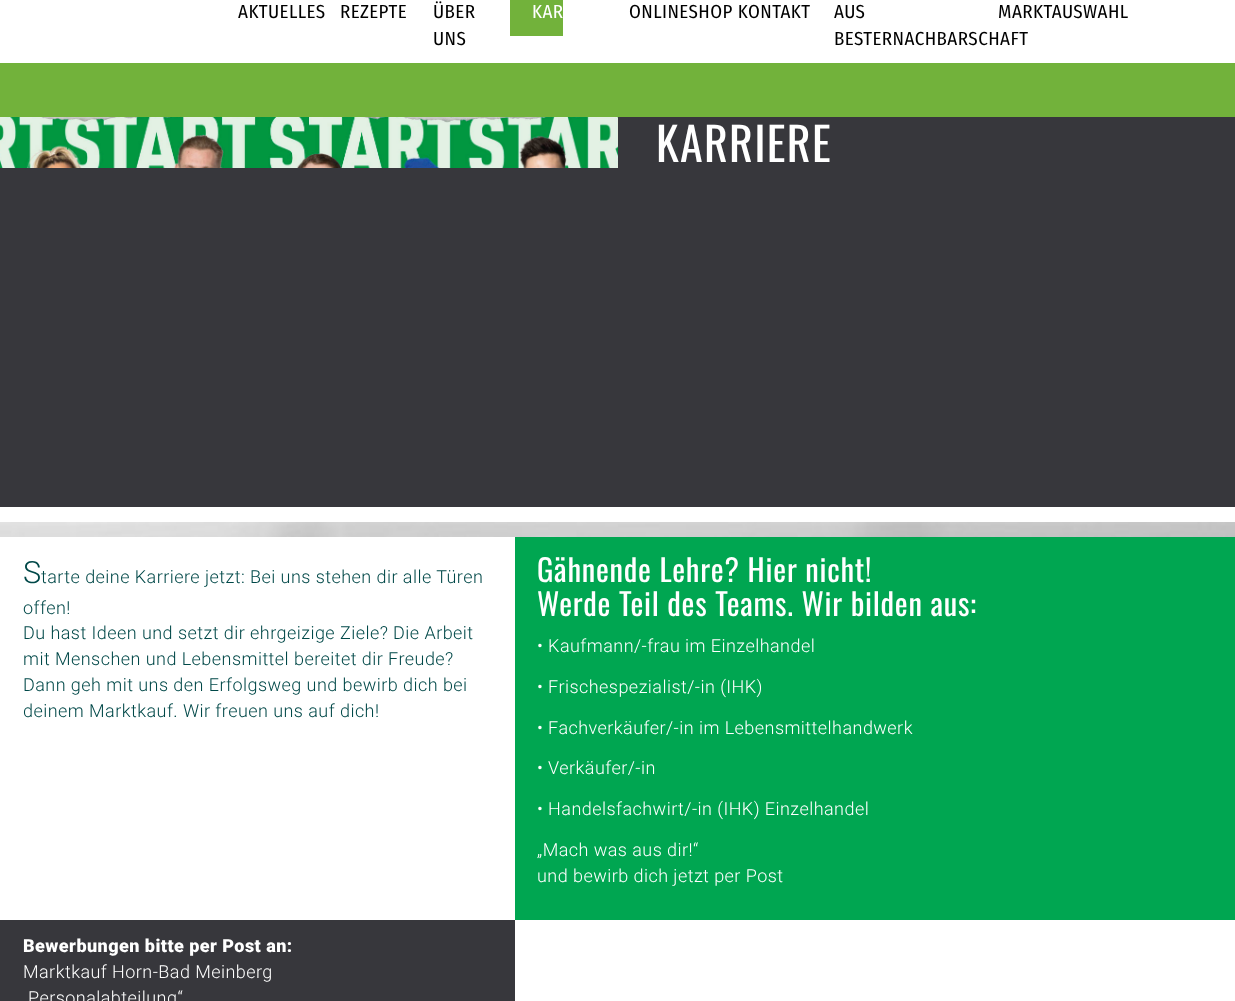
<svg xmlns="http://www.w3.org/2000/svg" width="1235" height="1001">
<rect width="100%" height="100%" fill="#fff"/>
<rect y="63" width="1235" height="54" fill="#72b23b"/>
<text x="238" y="18" style="font-family:Fira Sans Condensed;font-size:18.9px;letter-spacing:0.45px;fill:#000">AKTUELLES</text>
<text x="340" y="18" style="font-family:Fira Sans Condensed;font-size:18.9px;letter-spacing:0.45px;fill:#000">REZEPTE</text>
<text x="433" y="18" style="font-family:Fira Sans Condensed;font-size:18.9px;letter-spacing:0.45px;fill:#000">ÜBER</text>
<text x="433" y="45" style="font-family:Fira Sans Condensed;font-size:18.9px;letter-spacing:0.45px;fill:#000">UNS</text>
<rect x="510" width="53" height="36" fill="#72b23b"/>
<text x="532" y="18" style="font-family:Fira Sans Condensed;font-size:18.9px;letter-spacing:0.45px;fill:#fff">KAR</text>
<text x="629" y="18" style="font-family:Fira Sans Condensed;font-size:18.9px;letter-spacing:0.45px;fill:#000">ONLINESHOP KONTAKT</text>
<text x="834" y="18" style="font-family:Fira Sans Condensed;font-size:18.9px;letter-spacing:0.45px;fill:#000">AUS</text>
<text x="834" y="45" style="font-family:Fira Sans Condensed;font-size:18.9px;letter-spacing:0.45px;fill:#000">BESTERNACHBARSCHAFT</text>
<text x="998" y="18" style="font-family:Fira Sans Condensed;font-size:18.9px;letter-spacing:0.45px;fill:#000">MARKTAUSWAHL</text>
<rect y="117" width="1235" height="390" fill="#37373c"/>
<image x="0" y="117" width="618" height="51" href="media/1.png"/>
<text x="656" y="162" style="font-family:Oswald;font-size:46px;letter-spacing:1.25px;fill:#fff">KARRIERE</text>
<image x="0" y="522" width="1235" height="15" href="media/2.png"/>
<text x="23" y="583" style="font-family:Roboto;font-size:30.6px;font-weight:300;letter-spacing:0.45px;fill:#004848">S</text>
<text x="41" y="583" style="font-family:Roboto;font-size:18px;font-weight:300;letter-spacing:0.45px;fill:#004848">tarte deine Karriere jetzt: Bei uns stehen dir alle Türen</text>
<text x="23" y="614" style="font-family:Roboto;font-size:18px;font-weight:300;letter-spacing:0.45px;fill:#004848">offen!</text>
<text x="23" y="639" style="font-family:Roboto;font-size:18px;font-weight:300;letter-spacing:0.45px;fill:#004848">Du hast Ideen und setzt dir ehrgeizige Ziele? Die Arbeit</text>
<text x="23" y="665" style="font-family:Roboto;font-size:18px;font-weight:300;letter-spacing:0.45px;fill:#004848">mit Menschen und Lebensmittel bereitet dir Freude?</text>
<text x="23" y="691" style="font-family:Roboto;font-size:18px;font-weight:300;letter-spacing:0.45px;fill:#004848">Dann geh mit uns den Erfolgsweg und bewirb dich bei</text>
<text x="23" y="717" style="font-family:Roboto;font-size:18px;font-weight:300;letter-spacing:0.45px;fill:#004848">deinem Marktkauf. Wir freuen uns auf dich!</text>
<rect x="515" y="537" width="720" height="383" fill="#00a651"/>
<text x="537" y="582" style="font-family:Oswald;font-size:30.6px;letter-spacing:0.75px;fill:#fff">Gähnende Lehre? Hier nicht!</text>
<text x="537" y="616" style="font-family:Oswald;font-size:30.6px;letter-spacing:0.75px;fill:#fff">Werde Teil des Teams. Wir bilden aus:</text>
<text x="537" y="652" style="font-family:Roboto;font-size:18px;font-weight:300;letter-spacing:0.45px;fill:#fff">• Kaufmann/-frau im Einzelhandel</text>
<text x="537" y="693" style="font-family:Roboto;font-size:18px;font-weight:300;letter-spacing:0.45px;fill:#fff">• Frischespezialist/-in (IHK)</text>
<text x="537" y="734" style="font-family:Roboto;font-size:18px;font-weight:300;letter-spacing:0.45px;fill:#fff">• Fachverkäufer/-in im Lebensmittelhandwerk</text>
<text x="537" y="774" style="font-family:Roboto;font-size:18px;font-weight:300;letter-spacing:0.45px;fill:#fff">• Verkäufer/-in</text>
<text x="537" y="815" style="font-family:Roboto;font-size:18px;font-weight:300;letter-spacing:0.45px;fill:#fff">• Handelsfachwirt/-in (IHK) Einzelhandel</text>
<text x="537" y="856" style="font-family:Roboto;font-size:18px;font-weight:300;letter-spacing:0.45px;fill:#fff">„Mach was aus dir!“</text>
<text x="537" y="882" style="font-family:Roboto;font-size:18px;font-weight:300;letter-spacing:0.45px;fill:#fff">und bewirb dich jetzt per Post</text>
<rect y="920" width="515" height="81" fill="#37373c"/>
<text x="23" y="952" style="font-family:Roboto;font-size:18px;font-weight:900;letter-spacing:0.45px;fill:#fff">Bewerbungen bitte per Post an:</text>
<text x="23" y="978" style="font-family:Roboto;font-size:18px;font-weight:300;letter-spacing:0.45px;fill:#fff">Marktkauf Horn-Bad Meinberg</text>
<text x="28" y="1004" style="font-family:Roboto;font-size:18px;font-weight:300;letter-spacing:0.45px;fill:#fff">Personalabteilung“</text>
</svg>
